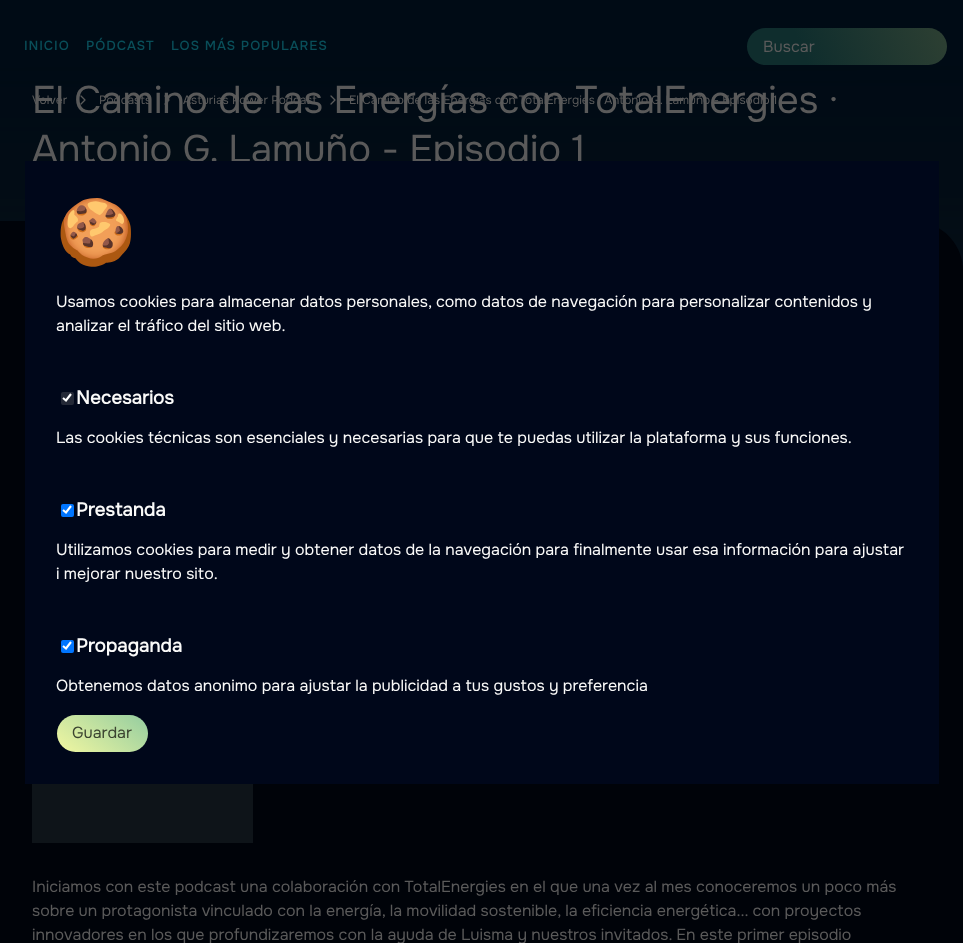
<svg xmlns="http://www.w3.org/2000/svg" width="963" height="943">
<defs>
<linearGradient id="g1" gradientUnits="userSpaceOnUse" x1="481" y1="0" x2="482" y2="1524"><stop offset="0.04" stop-color="#000b15"/><stop offset="0.15" stop-color="#01070c"/><stop offset="0.5" stop-color="#000309"/></linearGradient>
<linearGradient id="g2" gradientUnits="userSpaceOnUse" x1="755" y1="84" x2="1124" y2="-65"><stop offset="0.14" stop-color="#0f2d2d"/><stop offset="1" stop-color="#57593a"/></linearGradient>
<linearGradient id="g3" gradientUnits="userSpaceOnUse" x1="178" y1="632" x2="77" y2="767"><stop offset="0" stop-color="#35a29f"/><stop offset="1" stop-color="#f2f7a1"/></linearGradient>
</defs>
<rect width="100%" height="100%" fill="#fff"/>
<rect width="963" height="60" fill="url(#g1)"/>
<text x="24" y="50" style="font-family:Onest;font-size:12.75px;font-weight:bold;letter-spacing:1.25px;fill:#094e59">INICIO</text>
<text x="86" y="50" style="font-family:Onest;font-size:12.75px;font-weight:bold;letter-spacing:1.25px;fill:#094e59">PÓDCAST</text>
<text x="171" y="50" style="font-family:Onest;font-size:12.75px;font-weight:bold;letter-spacing:1.25px;fill:#094e59">LOS MÁS POPULARES</text>
<image x="0" y="60" width="963" height="211" href="media/1.png"/>
<rect x="747" y="28" width="200" height="37" rx="18.5" fill="url(#g2)"/>
<text x="763" y="52" style="font-family:Onest;font-size:16px;fill:#5a5a5a">Buscar</text>
<path d="M0 221h913c27.5 0 50 22.5 50 50v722h-963z" fill="#000309"/>
<text x="32" y="104" style="font-family:Onest;font-size:12px;fill:#5a5a5a">Volver</text>
<path d="M81 104l4-4l-4-4" fill="none" stroke="#5a5a5a" stroke-width="1.3" stroke-linecap="round" stroke-linejoin="round"/>
<text x="99" y="104" style="font-family:Onest;font-size:12px;fill:#5a5a5a">Podcasts</text>
<path d="M165 104l4-4l-4-4" fill="none" stroke="#5a5a5a" stroke-width="1.3" stroke-linecap="round" stroke-linejoin="round"/>
<text x="183" y="104" style="font-family:Onest;font-size:12px;fill:#5a5a5a">Asturias Power Podcast</text>
<path d="M331 104l4-4l-4-4" fill="none" stroke="#5a5a5a" stroke-width="1.3" stroke-linecap="round" stroke-linejoin="round"/>
<text x="349" y="104" style="font-family:Onest;font-size:12px;fill:#5a5a5a">El Camino de las Energías con TotalEnergies · Antonio G. Lamuño - Episodio 1</text>
<text x="32" y="113" style="font-family:Onest;font-size:38.4px;fill:#5a5a5a">El Camino de las Energías con TotalEnergies ·</text>
<text x="32" y="162" style="font-family:Onest;font-size:38.4px;fill:#5a5a5a">Antonio G. Lamuño - Episodio 1</text>
<image x="32" y="784" width="221" height="59" href="media/2.png"/>
<text x="32" y="892" style="font-family:Onest;font-size:16px;fill:#5a5a5a">Iniciamos con este podcast una colaboración con TotalEnergies en el que una vez al mes conoceremos un poco más</text>
<text x="32" y="916" style="font-family:Onest;font-size:16px;fill:#5a5a5a">sobre un protagonista vinculado con la energía, la movilidad sostenible, la eficiencia energética... con proyectos</text>
<text x="32" y="940" style="font-family:Onest;font-size:16px;fill:#5a5a5a">innovadores en los que profundizaremos con la ayuda de Luisma y nuestros invitados. En este primer episodio</text>
<rect x="25" y="161" width="914" height="623" fill="#00071a"/>
<text x="56" y="254" style="font-family:Noto Color Emoji;font-size:64px;font-weight:bold;fill:#fafaf9">🍪</text>
<text x="56" y="307" style="font-family:Onest;font-size:16px;fill:#fafaf9">Usamos cookies para almacenar datos personales, como datos de navegación para personalizar contenidos y</text>
<text x="56" y="331" style="font-family:Onest;font-size:16px;fill:#fafaf9">analizar el tráfico del sitio web.</text>
<rect x="61" y="392" width="13" height="13" rx="2" fill="#232836"/>
<path d="M63 398l3 2.5l5-6.5" fill="none" stroke="#fff" stroke-width="2.1"/>
<text x="76" y="404" style="font-family:Onest;font-size:18.75px;font-weight:bold;fill:#fafaf9">Necesarios</text>
<text x="56" y="443" style="font-family:Onest;font-size:16px;fill:#fafaf9">Las cookies técnicas son esenciales y necesarias para que te puedas utilizar la plataforma y sus funciones.</text>
<rect x="61" y="504" width="13" height="13" rx="2" fill="#0075ff"/>
<path d="M63 510l3 2.5l5-6.5" fill="none" stroke="#fff" stroke-width="2.1"/>
<text x="76" y="516" style="font-family:Onest;font-size:18.75px;font-weight:bold;fill:#fafaf9">Prestanda</text>
<text x="56" y="555" style="font-family:Onest;font-size:16px;fill:#fafaf9">Utilizamos cookies para medir y obtener datos de la navegación para finalmente usar esa información para ajustar</text>
<text x="56" y="579" style="font-family:Onest;font-size:16px;fill:#fafaf9">i mejorar nuestro sito.</text>
<rect x="61" y="640" width="13" height="13" rx="2" fill="#0075ff"/>
<path d="M63 646l3 2.5l5-6.5" fill="none" stroke="#fff" stroke-width="2.1"/>
<text x="76" y="652" style="font-family:Onest;font-size:18.75px;font-weight:bold;fill:#fafaf9">Propaganda</text>
<text x="56" y="691" style="font-family:Onest;font-size:16px;fill:#fafaf9">Obtenemos datos anonimo para ajustar la publicidad a tus gustos y preferencia</text>
<rect x="57" y="715" width="91" height="37" rx="18.5" fill="url(#g3)"/>
<text x="72" y="738" style="font-family:Onest;font-size:16px;fill:#3b4430">Guardar</text>
</svg>
